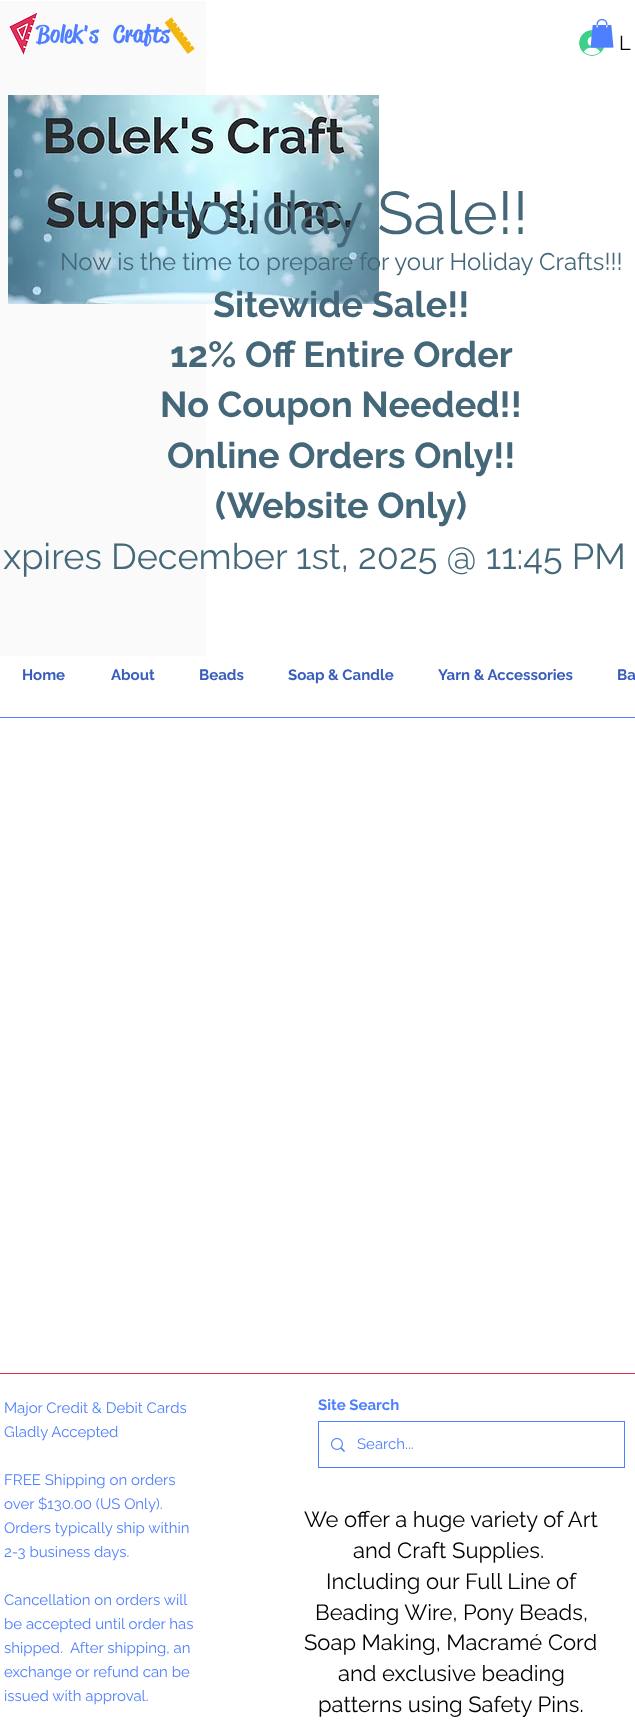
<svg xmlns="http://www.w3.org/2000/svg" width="635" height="1732">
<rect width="100%" height="100%" fill="#fff"/>
<image x="579" y="30" width="26" height="26" href="media/5.png"/>
<image x="590" y="19" width="24" height="29" href="media/1.png"/>
<rect y="1" width="206" height="655" fill="#fafafa"/>
<image x="8" y="11" width="30" height="45" href="media/2.png"/>
<image x="164" y="17" width="31" height="38" href="media/3.png"/>
<text x="36" y="42" style="font-family:'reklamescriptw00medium';font-size:24px;font-weight:500;fill:#4e7fff">Bolek's</text>
<text x="113" y="42" style="font-family:'reklamescriptw00medium';font-size:24px;font-weight:500;fill:#4e7fff">Crafts</text>
<image x="8" y="95" width="371" height="209" href="media/4.png"/>
<text x="619" y="50" style="font-family:Raleway;font-size:20px;fill:#000">L</text>
<text x="153" y="234" style="font-family:Raleway;font-size:60px;fill:#446879">Holiday Sale!!</text>
<text x="60" y="270" style="font-family:Raleway;font-size:24px;fill:#446879">Now is the time to prepare for your Holiday Crafts!!!</text>
<text x="213" y="317" style="font-family:Raleway;font-size:36px;font-weight:bold;fill:#446879">Sitewide Sale!!</text>
<text x="170" y="367" style="font-family:Raleway;font-size:36px;font-weight:bold;fill:#446879">12% Off Entire Order</text>
<text x="160" y="417" style="font-family:Raleway;font-size:36px;font-weight:bold;fill:#446879">No Coupon Needed!!</text>
<text x="167" y="468" style="font-family:Raleway;font-size:36px;font-weight:bold;fill:#446879">Online Orders Only!!</text>
<text x="215" y="518" style="font-family:Raleway;font-size:36px;font-weight:bold;fill:#446879">(Website Only)</text>
<text x="3" y="569" style="font-family:Raleway;font-size:36px;fill:#446879">xpires December 1st, 2025 @ 11:45 PM</text>
<text x="22" y="680" style="font-family:Raleway;font-size:15px;font-weight:bold;fill:#395dbd">Home</text>
<text x="111" y="680" style="font-family:Raleway;font-size:15px;font-weight:bold;fill:#395dbd">About</text>
<text x="199" y="680" style="font-family:Raleway;font-size:15px;font-weight:bold;fill:#395dbd">Beads</text>
<text x="288" y="680" style="font-family:Raleway;font-size:15px;font-weight:bold;fill:#395dbd">Soap &amp; Candle</text>
<text x="438" y="680" style="font-family:Raleway;font-size:15px;font-weight:bold;fill:#395dbd">Yarn &amp; Accessories</text>
<text x="617" y="680" style="font-family:Raleway;font-size:15px;font-weight:bold;fill:#395dbd">Ba</text>
<rect y="717" width="635" height="1" fill="#4e7fff"/>
<rect y="1373" width="635" height="1" fill="#e02f58"/>
<text x="4" y="1413" style="font-family:Raleway;font-size:15px;fill:#4e7fff">Major Credit &amp; Debit Cards</text>
<text x="4" y="1437" style="font-family:Raleway;font-size:15px;fill:#4e7fff">Gladly Accepted</text>
<text x="4" y="1485" style="font-family:Raleway;font-size:15px;fill:#4e7fff">FREE Shipping on orders</text>
<text x="4" y="1509" style="font-family:Raleway;font-size:15px;fill:#4e7fff">over $130.00 (US Only).</text>
<text x="4" y="1533" style="font-family:Raleway;font-size:15px;fill:#4e7fff">Orders typically ship within</text>
<text x="4" y="1557" style="font-family:Raleway;font-size:15px;fill:#4e7fff">2-3 business days.</text>
<text x="4" y="1605" style="font-family:Raleway;font-size:15px;fill:#4e7fff">Cancellation on orders will</text>
<text x="4" y="1629" style="font-family:Raleway;font-size:15px;fill:#4e7fff">be accepted until order has</text>
<text x="4" y="1653" style="font-family:Raleway;font-size:15px;fill:#4e7fff" xml:space="preserve">shipped.  After shipping, an</text>
<text x="4" y="1677" style="font-family:Raleway;font-size:15px;fill:#4e7fff">exchange or refund can be</text>
<text x="4" y="1701" style="font-family:Raleway;font-size:15px;fill:#4e7fff">issued with approval.</text>
<text x="318" y="1410" style="font-family:Raleway;font-size:15px;font-weight:bold;fill:#4e7fff">Site Search</text>
<rect x="318.5" y="1421.5" width="306" height="46" fill="none" stroke="#4e7fff"/>
<image x="331" y="1438" width="14" height="14" href="media/6.png"/>
<text x="357" y="1449" style="font-family:Raleway;font-size:15px;fill:#4e7fff">Search...</text>
<text x="304" y="1527" style="font-family:Raleway;font-size:22px;fill:#000">We offer a huge variety of Art</text>
<text x="353" y="1558" style="font-family:Raleway;font-size:22px;fill:#000">and Craft Supplies.</text>
<text x="326" y="1589" style="font-family:Raleway;font-size:22px;fill:#000">Including our Full Line of</text>
<text x="315" y="1620" style="font-family:Raleway;font-size:22px;fill:#000">Beading Wire, Pony Beads,</text>
<text x="304" y="1650" style="font-family:Raleway;font-size:22px;fill:#000">Soap Making, Macramé Cord</text>
<text x="338" y="1681" style="font-family:Raleway;font-size:22px;fill:#000">and exclusive beading</text>
<text x="318" y="1712" style="font-family:Raleway;font-size:22px;fill:#000">patterns using Safety Pins.</text>
</svg>
